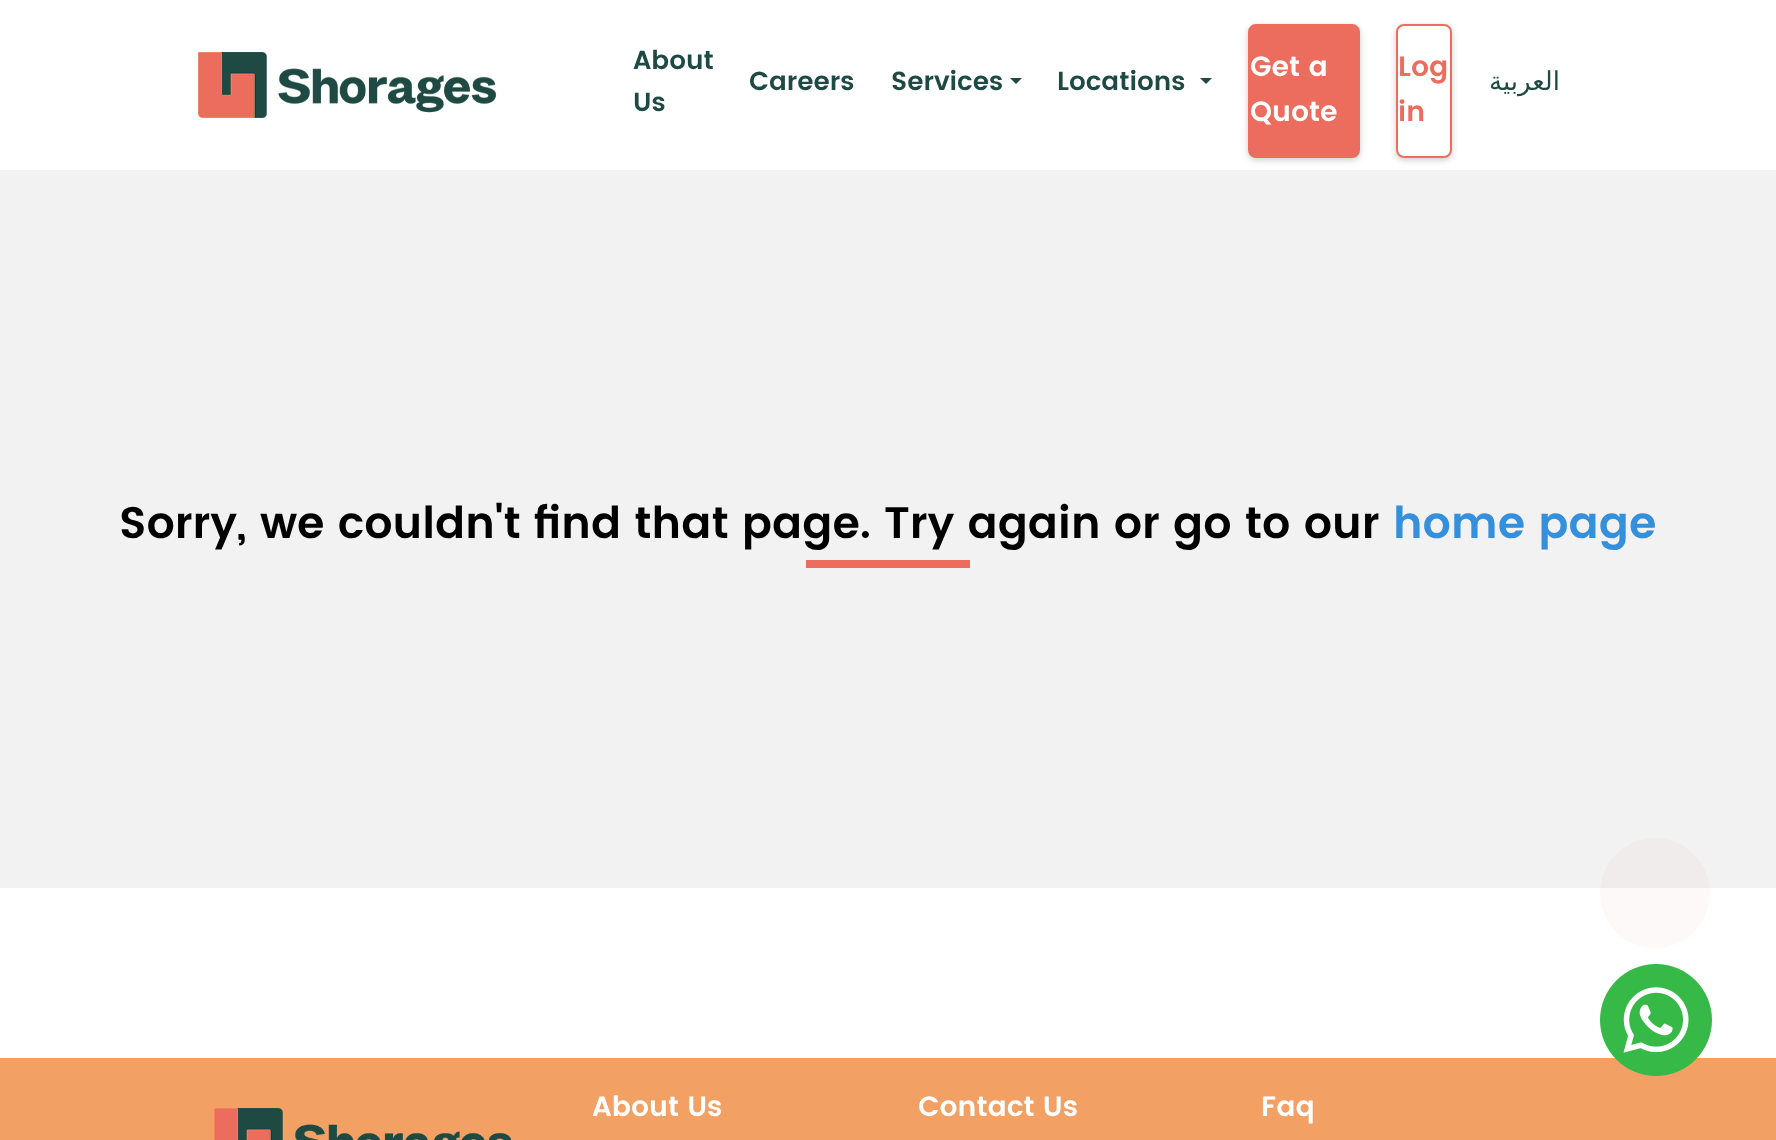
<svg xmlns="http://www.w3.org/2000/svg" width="1776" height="1140">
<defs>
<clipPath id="clip1"><path d="M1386 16h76v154h-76zm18 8h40c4.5 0 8 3.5 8 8v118c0 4.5-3.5 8-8 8h-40c-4.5 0-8-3.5-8-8v-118c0-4.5 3.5-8 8-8z" clip-rule="evenodd"/></clipPath>
</defs>
<rect width="100%" height="100%" fill="#fff"/>
<image x="198" y="52" width="299" height="66" href="media/1.png"/>
<text x="633" y="69" style="font-family:Poppins;font-size:26px;font-weight:600;fill:#1f4a44">About</text>
<text x="633" y="111" style="font-family:Poppins;font-size:26px;font-weight:600;fill:#1f4a44">Us</text>
<text x="749" y="90" style="font-family:Poppins;font-size:26px;font-weight:600;fill:#1f4a44">Careers</text>
<text x="891" y="90" style="font-family:Poppins;font-size:26px;font-weight:600;fill:#1f4a44">Services</text>
<path d="M1010 78h12l-6 6z" fill="#1f4a44"/>
<text x="1057" y="90" style="font-family:Poppins;font-size:26px;font-weight:600;fill:#1f4a44">Locations</text>
<path d="M1200 78h12l-6 6z" fill="#1f4a44"/>
<rect x="1248" y="26" width="112" height="134" rx="8" fill="#00000033" filter="blur(3px)"/>
<rect x="1249" y="25" width="110" height="132" rx="7" fill="#ec6c5e" stroke="#ec6c5e" stroke-width="2"/>
<text x="1250" y="76" style="font-family:Poppins;font-size:28px;font-weight:600;fill:#fff">Get a</text>
<text x="1250" y="121" style="font-family:Poppins;font-size:28px;font-weight:600;fill:#fff">Quote</text>
<g clip-path="url(#clip1)">
<rect x="1396" y="26" width="56" height="134" rx="8" fill="#00000033" filter="blur(3px)"/>
</g>
<rect x="1397" y="25" width="54" height="132" rx="7" fill="none" stroke="#ec6c5e" stroke-width="2"/>
<text x="1398" y="76" style="font-family:Poppins;font-size:28px;font-weight:600;fill:#ec6c5e">Log</text>
<text x="1398" y="121" style="font-family:Poppins;font-size:28px;font-weight:600;fill:#ec6c5e">in</text>
<text x="1560" y="90" style="font-family:DejaVu Sans;font-size:26px;direction:rtl;fill:#1f4a44">العربية</text>
<rect y="170" width="1776" height="718" fill="#f2f2f2"/>
<text x="119" y="538" style="font-family:Poppins;font-size:44px;font-weight:600;fill:#000">Sorry, we couldn't find that page. Try again or go to our</text>
<text x="1393" y="538" style="font-family:Poppins;font-size:44px;font-weight:600;fill:#3490dc">home page</text>
<rect x="806" y="560" width="164" height="8" fill="#ec6c5e"/>
<circle cx="1655" cy="893" r="55" fill="#ec6c5e0a"/>
<rect y="1058" width="1776" height="82" fill="#f2a064"/>
<image x="1600" y="964" width="112" height="112" href="media/2.png"/>
<image x="214" y="1108" width="298" height="32" href="media/3.png"/>
<text x="592" y="1116" style="font-family:Poppins;font-size:28px;font-weight:600;fill:#fff">About Us</text>
<text x="918" y="1116" style="font-family:Poppins;font-size:28px;font-weight:600;fill:#fff">Contact Us</text>
<text x="1261" y="1116" style="font-family:Poppins;font-size:28px;font-weight:600;fill:#fff">Faq</text>
</svg>
